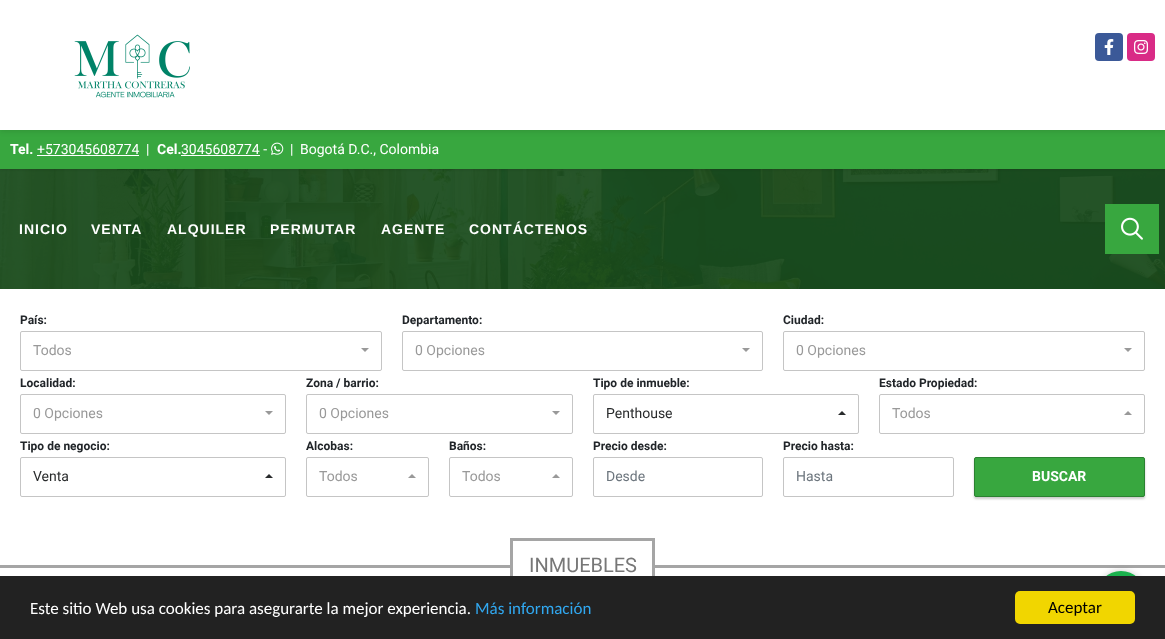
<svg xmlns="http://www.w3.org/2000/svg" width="1165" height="639">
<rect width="100%" height="100%" fill="#fff"/>
<image x="0" y="169" width="1165" height="120" href="media/5.png"/>
<rect y="130" width="1165" height="39" fill="#00000033" filter="blur(1.5px)"/>
<rect y="130" width="1165" height="39" fill="#38a73f"/>
<rect y="2" width="1165" height="130" fill="#00000017" filter="blur(2.5px)"/>
<rect width="1165" height="130" fill="#fff"/>
<image x="74" y="34" width="116" height="64" href="media/1.png"/>
<rect x="1095" y="33" width="28" height="28" rx="4" fill="#3b5998"/>
<image x="1104" y="39" width="10" height="16" href="media/2.png"/>
<rect x="1127" y="33" width="28" height="28" rx="4" fill="#d92b86"/>
<image x="1134" y="40" width="14" height="14" href="media/3.png"/>
<text x="10" y="154" style="font-family:Roboto;font-size:14px;font-weight:bold;fill:#fff">Tel.</text>
<text x="37" y="154" style="font-family:Roboto;font-size:14px;fill:#fff">+573045608774</text>
<rect x="37" y="155" width="102" height="1" fill="#fff"/>
<text x="146" y="154" style="font-family:Roboto;font-size:14px;fill:#fff">|</text>
<text x="157" y="154" style="font-family:Roboto;font-size:14px;font-weight:bold;fill:#fff">Cel.</text>
<text x="181" y="154" style="font-family:Roboto;font-size:14px;fill:#fff">3045608774 -</text>
<rect x="181" y="155" width="79" height="1" fill="#fff"/>
<image x="271" y="142" width="13" height="13" href="media/4.png"/>
<text x="290" y="154" style="font-family:Roboto;font-size:14px;fill:#fff">|</text>
<text x="300" y="154" style="font-family:Roboto;font-size:14px;fill:#fff">Bogotá D.C., Colombia</text>
<text x="19" y="234" style="font-family:Liberation Sans;font-size:14px;font-weight:bold;letter-spacing:1px;fill:#fff">INICIO</text>
<text x="91" y="234" style="font-family:Liberation Sans;font-size:14px;font-weight:bold;letter-spacing:1px;fill:#fff">VENTA</text>
<text x="167" y="234" style="font-family:Liberation Sans;font-size:14px;font-weight:bold;letter-spacing:1px;fill:#fff">ALQUILER</text>
<text x="270" y="234" style="font-family:Liberation Sans;font-size:14px;font-weight:bold;letter-spacing:1px;fill:#fff">PERMUTAR</text>
<text x="381" y="234" style="font-family:Liberation Sans;font-size:14px;font-weight:bold;letter-spacing:1px;fill:#fff">AGENTE</text>
<text x="469" y="234" style="font-family:Liberation Sans;font-size:14px;font-weight:bold;letter-spacing:1px;fill:#fff">CONTÁCTENOS</text>
<rect x="1105" y="204" width="54" height="50" fill="#38a73f"/>
<image x="1121" y="217" width="22" height="23" href="media/6.png"/>
<text x="20" y="324" style="font-family:Roboto;font-size:12px;font-weight:bold;fill:#212529">País:</text>
<rect x="20.5" y="331.5" width="361" height="39" rx="1.5" fill="none" stroke="#c5c5c5"/>
<text x="33" y="355" style="font-family:Roboto;font-size:14px;fill:#999">Todos</text>
<path d="M361 348h8l-4 4z" fill="#999"/>
<text x="402" y="324" style="font-family:Roboto;font-size:12px;font-weight:bold;fill:#212529">Departamento:</text>
<rect x="402.5" y="331.5" width="360" height="39" rx="1.5" fill="none" stroke="#c5c5c5"/>
<text x="415" y="355" style="font-family:Roboto;font-size:14px;fill:#999">0 Opciones</text>
<path d="M742 348h8l-4 4z" fill="#999"/>
<text x="783" y="324" style="font-family:Roboto;font-size:12px;font-weight:bold;fill:#212529">Ciudad:</text>
<rect x="783.5" y="331.5" width="361" height="39" rx="1.5" fill="none" stroke="#c5c5c5"/>
<text x="796" y="355" style="font-family:Roboto;font-size:14px;fill:#999">0 Opciones</text>
<path d="M1124 348h8l-4 4z" fill="#999"/>
<text x="20" y="387" style="font-family:Roboto;font-size:12px;font-weight:bold;fill:#212529">Localidad:</text>
<rect x="20.5" y="394.5" width="265" height="39" rx="1.5" fill="none" stroke="#c5c5c5"/>
<text x="33" y="418" style="font-family:Roboto;font-size:14px;fill:#999">0 Opciones</text>
<path d="M265 411h8l-4 4z" fill="#999"/>
<text x="306" y="387" style="font-family:Roboto;font-size:12px;font-weight:bold;fill:#212529">Zona / barrio:</text>
<rect x="306.5" y="394.5" width="266" height="39" rx="1.5" fill="none" stroke="#c5c5c5"/>
<text x="319" y="418" style="font-family:Roboto;font-size:14px;fill:#999">0 Opciones</text>
<path d="M552 411h8l-4 4z" fill="#999"/>
<text x="593" y="387" style="font-family:Roboto;font-size:12px;font-weight:bold;fill:#212529">Tipo de inmueble:</text>
<rect x="593.5" y="394.5" width="265" height="39" rx="1.5" fill="none" stroke="#c5c5c5"/>
<text x="606" y="418" style="font-family:Roboto;font-size:14px;fill:#292b2c">Penthouse</text>
<path d="M846 415h-8l4-4z" fill="#292b2c"/>
<text x="879" y="387" style="font-family:Roboto;font-size:12px;font-weight:bold;fill:#212529">Estado Propiedad:</text>
<rect x="879.5" y="394.5" width="265" height="39" rx="1.5" fill="none" stroke="#c5c5c5"/>
<text x="892" y="418" style="font-family:Roboto;font-size:14px;fill:#999">Todos</text>
<path d="M1132 415h-8l4-4z" fill="#999"/>
<text x="20" y="450" style="font-family:Roboto;font-size:12px;font-weight:bold;fill:#212529">Tipo de negocio:</text>
<rect x="20.5" y="457.5" width="265" height="39" rx="1.5" fill="none" stroke="#c5c5c5"/>
<text x="33" y="481" style="font-family:Roboto;font-size:14px;fill:#292b2c">Venta</text>
<path d="M273 478h-8l4-4z" fill="#292b2c"/>
<text x="306" y="450" style="font-family:Roboto;font-size:12px;font-weight:bold;fill:#212529">Alcobas:</text>
<rect x="306.5" y="457.5" width="122" height="39" rx="1.5" fill="none" stroke="#c5c5c5"/>
<text x="319" y="481" style="font-family:Roboto;font-size:14px;fill:#999">Todos</text>
<path d="M416 478h-8l4-4z" fill="#999"/>
<text x="449" y="450" style="font-family:Roboto;font-size:12px;font-weight:bold;fill:#212529">Baños:</text>
<rect x="449.5" y="457.5" width="123" height="39" rx="1.5" fill="none" stroke="#c5c5c5"/>
<text x="462" y="481" style="font-family:Roboto;font-size:14px;fill:#999">Todos</text>
<path d="M560 478h-8l4-4z" fill="#999"/>
<text x="593" y="450" style="font-family:Roboto;font-size:12px;font-weight:bold;fill:#212529">Precio desde:</text>
<rect x="593.5" y="457.5" width="169" height="39" rx="1.5" fill="none" stroke="#c5c5c5"/>
<text x="606" y="481" style="font-family:Roboto;font-size:14px;fill:#6c757d">Desde</text>
<text x="783" y="450" style="font-family:Roboto;font-size:12px;font-weight:bold;fill:#212529">Precio hasta:</text>
<rect x="783.5" y="457.5" width="170" height="39" rx="1.5" fill="none" stroke="#c5c5c5"/>
<text x="796" y="481" style="font-family:Roboto;font-size:14px;fill:#6c757d">Hasta</text>
<rect x="974" y="459" width="171" height="40" rx="2" fill="#00000033" filter="blur(1px)"/>
<rect x="974.5" y="457.5" width="170" height="39" rx="1.5" fill="#38a73f" stroke="#2b8131"/>
<text x="1032" y="481" style="font-family:Roboto;font-size:14px;font-weight:bold;fill:#fff">BUSCAR</text>
<rect y="565" width="1165" height="3" fill="#a5a5a5"/>
<rect x="513" y="565" width="139" height="3" fill="#fff"/>
<rect x="511.5" y="539.5" width="142" height="51" fill="none" stroke="#a5a5a5" stroke-width="3"/>
<text x="529" y="572" style="font-family:Roboto;font-size:20px;fill:#777">INMUEBLES</text>
<rect x="1097" y="571" width="48" height="48" rx="24" fill="#00000033" filter="blur(3px)"/>
<circle cx="1121" cy="595" r="24" fill="#1bb24e"/>
<rect y="576" width="1165" height="63" fill="#222"/>
<text x="30" y="614" style="font-family:Carlito;font-size:17px;fill:#fff">Este sitio Web usa cookies para asegurarte la mejor experiencia.</text>
<text x="475" y="614" style="font-family:Carlito;font-size:17px;fill:#31a8f0">Más información</text>
<rect x="1015" y="591" width="120" height="33" rx="5" fill="#f1d600"/>
<text x="1048" y="613" style="font-family:Carlito;font-size:17px;fill:#000">Aceptar</text>
</svg>
